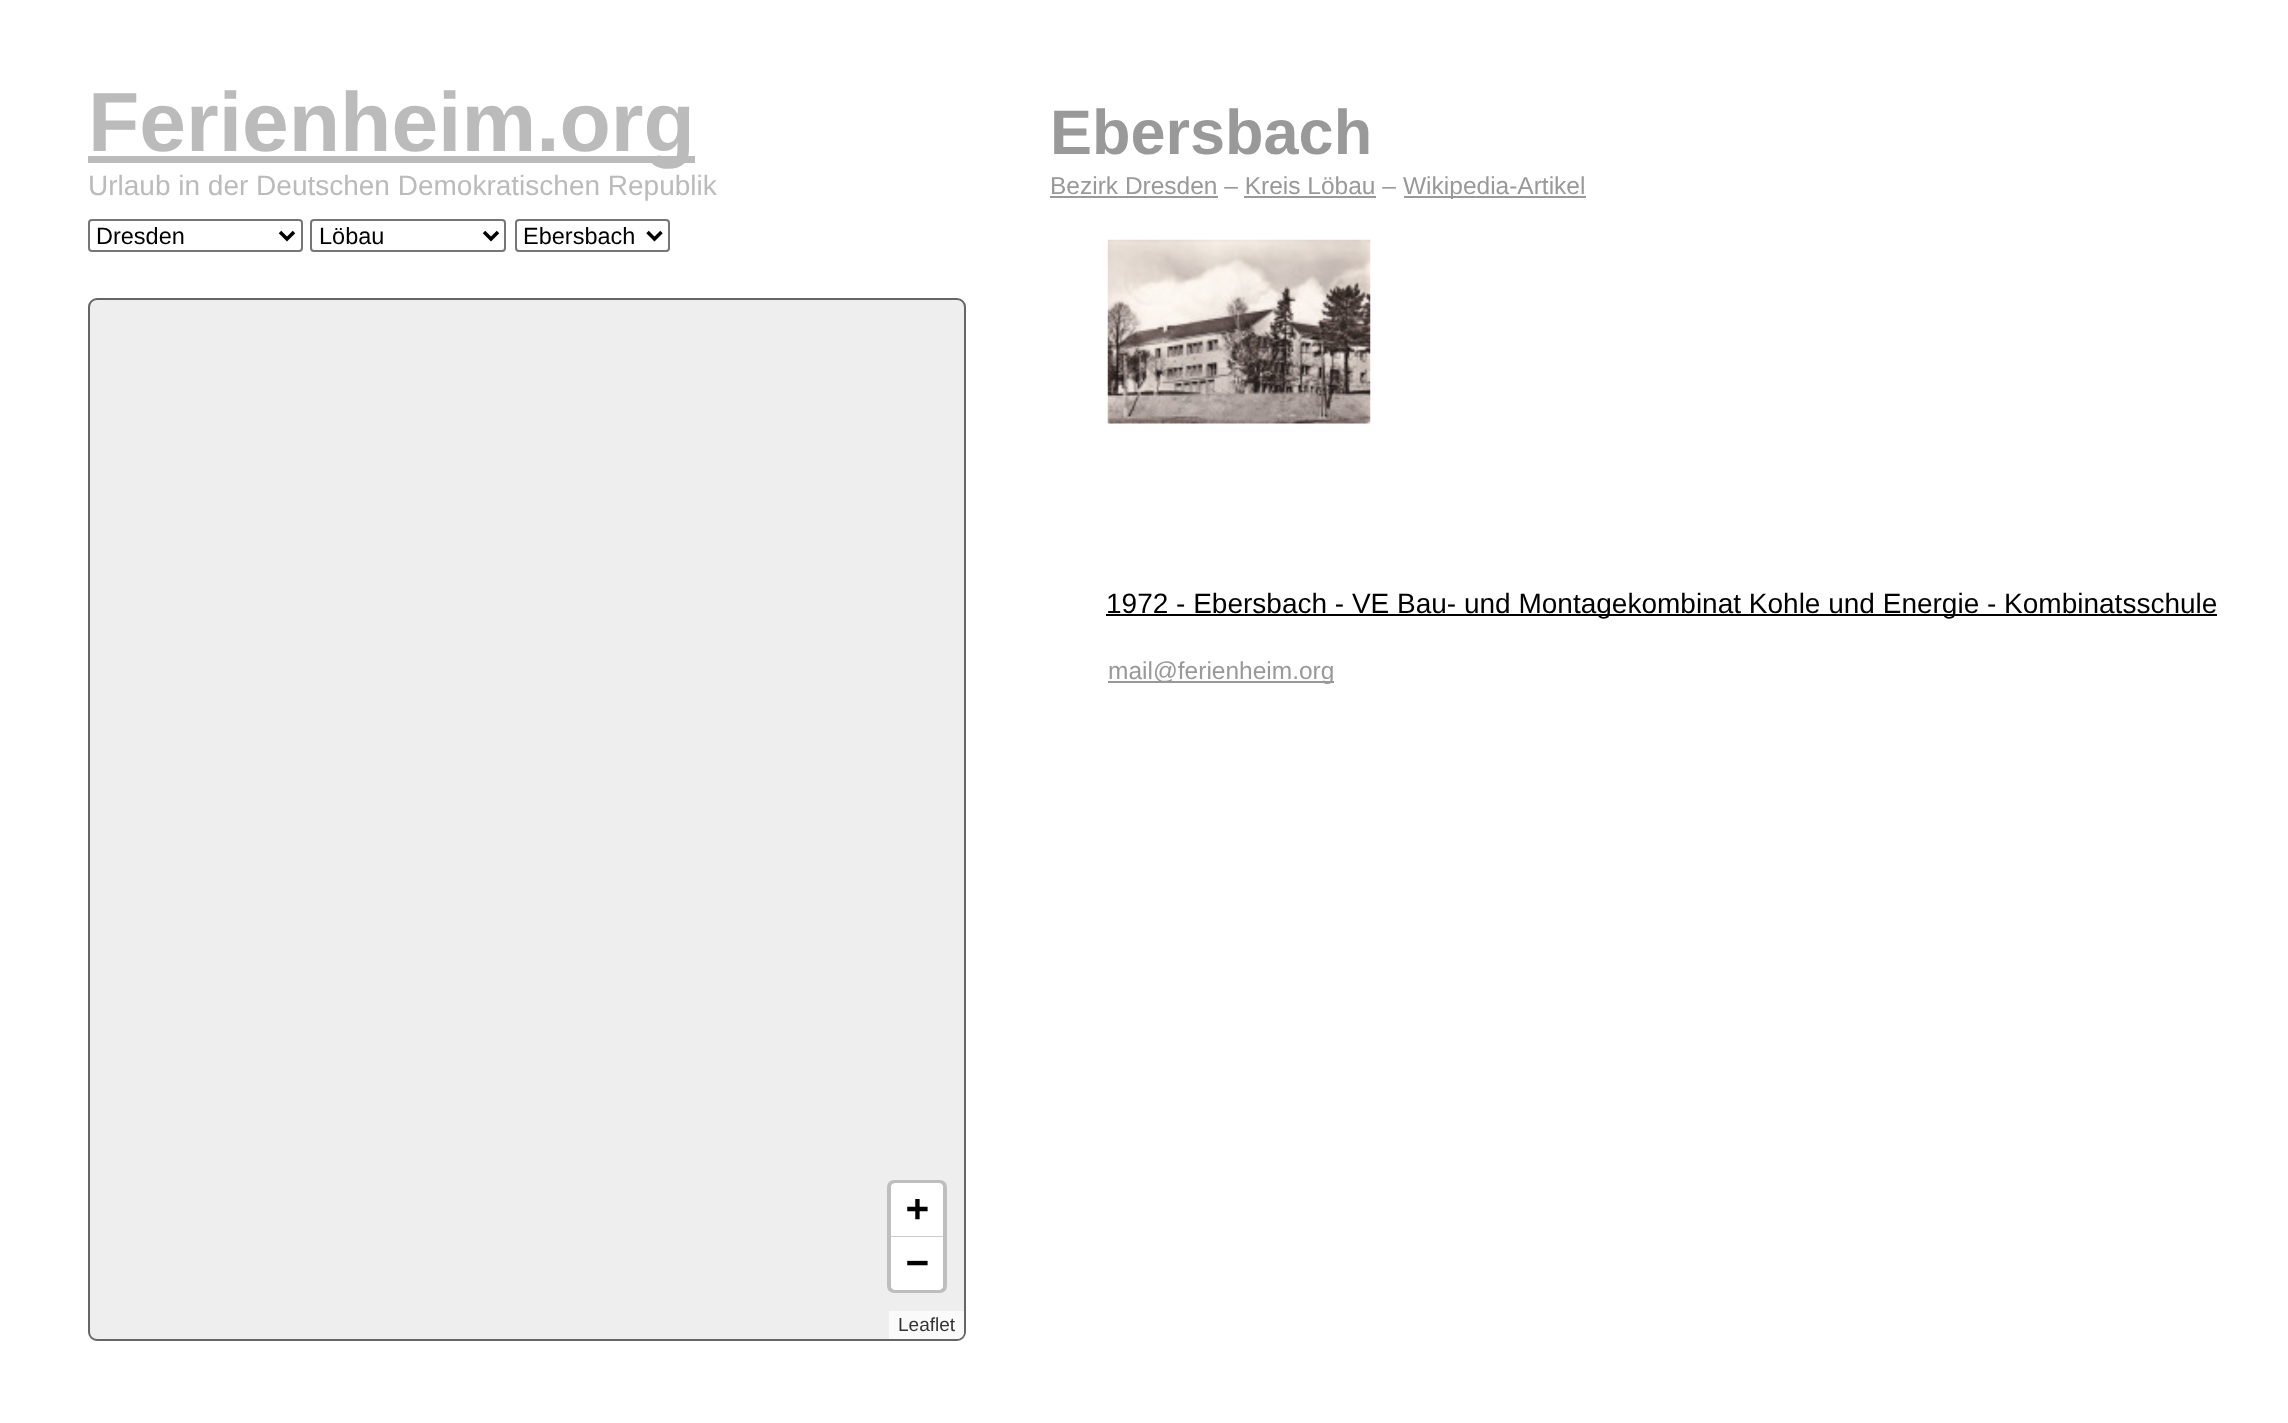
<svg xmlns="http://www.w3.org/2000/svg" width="2288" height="1423">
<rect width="100%" height="100%" fill="#fff"/>
<rect x="88" y="156" width="607" height="7" fill="#bbb"/>
<text x="88" y="151" style="font-family:Liberation Sans;font-size:84px;font-weight:bold;fill:#bbb">Ferienheim.org</text>
<text x="88" y="195" style="font-family:Liberation Sans;font-size:28px;fill:#bbb">Urlaub in der Deutschen Demokratischen Republik</text>
<rect x="89" y="220" width="213" height="31" rx="3" fill="none" stroke="#767676" stroke-width="2"/>
<path d="M280 232l7 7l7-7" fill="none" stroke="#000" stroke-width="3.5"/>
<text x="96" y="244" style="font-family:Liberation Sans;font-size:23.5px;fill:#000">Dresden</text>
<rect x="311" y="220" width="194" height="31" rx="3" fill="none" stroke="#767676" stroke-width="2"/>
<path d="M484 232l7 7l7-7" fill="none" stroke="#000" stroke-width="3.5"/>
<text x="319" y="244" style="font-family:Liberation Sans;font-size:23.5px;fill:#000">Löbau</text>
<rect x="516" y="220" width="153" height="31" rx="3" fill="none" stroke="#767676" stroke-width="2"/>
<path d="M647.5 232l7 7l7-7" fill="none" stroke="#000" stroke-width="3.5"/>
<text x="523" y="244" style="font-family:Liberation Sans;font-size:23.5px;fill:#000">Ebersbach</text>
<text x="1050" y="154" style="font-family:Liberation Sans;font-size:63px;font-weight:bold;fill:#999">Ebersbach</text>
<text x="1050" y="194" style="font-family:Liberation Sans;font-size:24.5px;fill:#999">Bezirk Dresden – Kreis Löbau –</text>
<rect x="1050" y="196" width="168" height="2" fill="#999"/>
<rect x="1244" y="196" width="132" height="2" fill="#999"/>
<rect x="1404" y="196" width="182" height="2" fill="#999"/>
<text x="1403" y="194" style="font-family:Liberation Sans;font-size:24.5px;fill:#999">Wikipedia-Artikel</text>
<image x="1107" y="239" width="264" height="185" href="media/1.png"/>
<rect x="1106" y="614" width="1111" height="2" fill="#000"/>
<text x="1106" y="613" style="font-family:Liberation Sans;font-size:28px;fill:#000">1972 - Ebersbach - VE Bau- und Montagekombinat Kohle und Energie - Kombinatsschule</text>
<rect x="1108" y="681" width="226" height="2" fill="#999"/>
<text x="1108" y="679" style="font-family:Liberation Sans;font-size:24.5px;fill:#999">mail@ferienheim.org</text>
<rect x="89" y="299" width="876" height="1041" rx="8" fill="#eee" stroke="#666" stroke-width="2"/>
<rect x="889" y="1182" width="56" height="109" rx="5" fill="none" stroke="#bebebe" stroke-width="4"/>
<path d="M895 1183h44c2 0 4 2 4 4v50h-52v-50c0-2 2-4 4-4z" fill="#fff"/>
<rect x="891" y="1236" width="52" height="1" fill="#ccc"/>
<text x="906" y="1221" style="font-family:DejaVu Sans Mono;font-size:38px;font-weight:bold;fill:#000">+</text>
<path d="M891 1237h52v49c0 2-2 4-4 4h-44c-2 0-4-2-4-4z" fill="#fff"/>
<text x="906" y="1275" style="font-family:DejaVu Sans Mono;font-size:38px;font-weight:bold;fill:#000">−</text>
<path d="M889 1311h75v21c0 4-3 7-7 7h-68z" fill="#ffffffb3"/>
<text x="898" y="1331" style="font-family:Liberation Sans;font-size:19px;fill:#333">Leaflet</text>
</svg>
